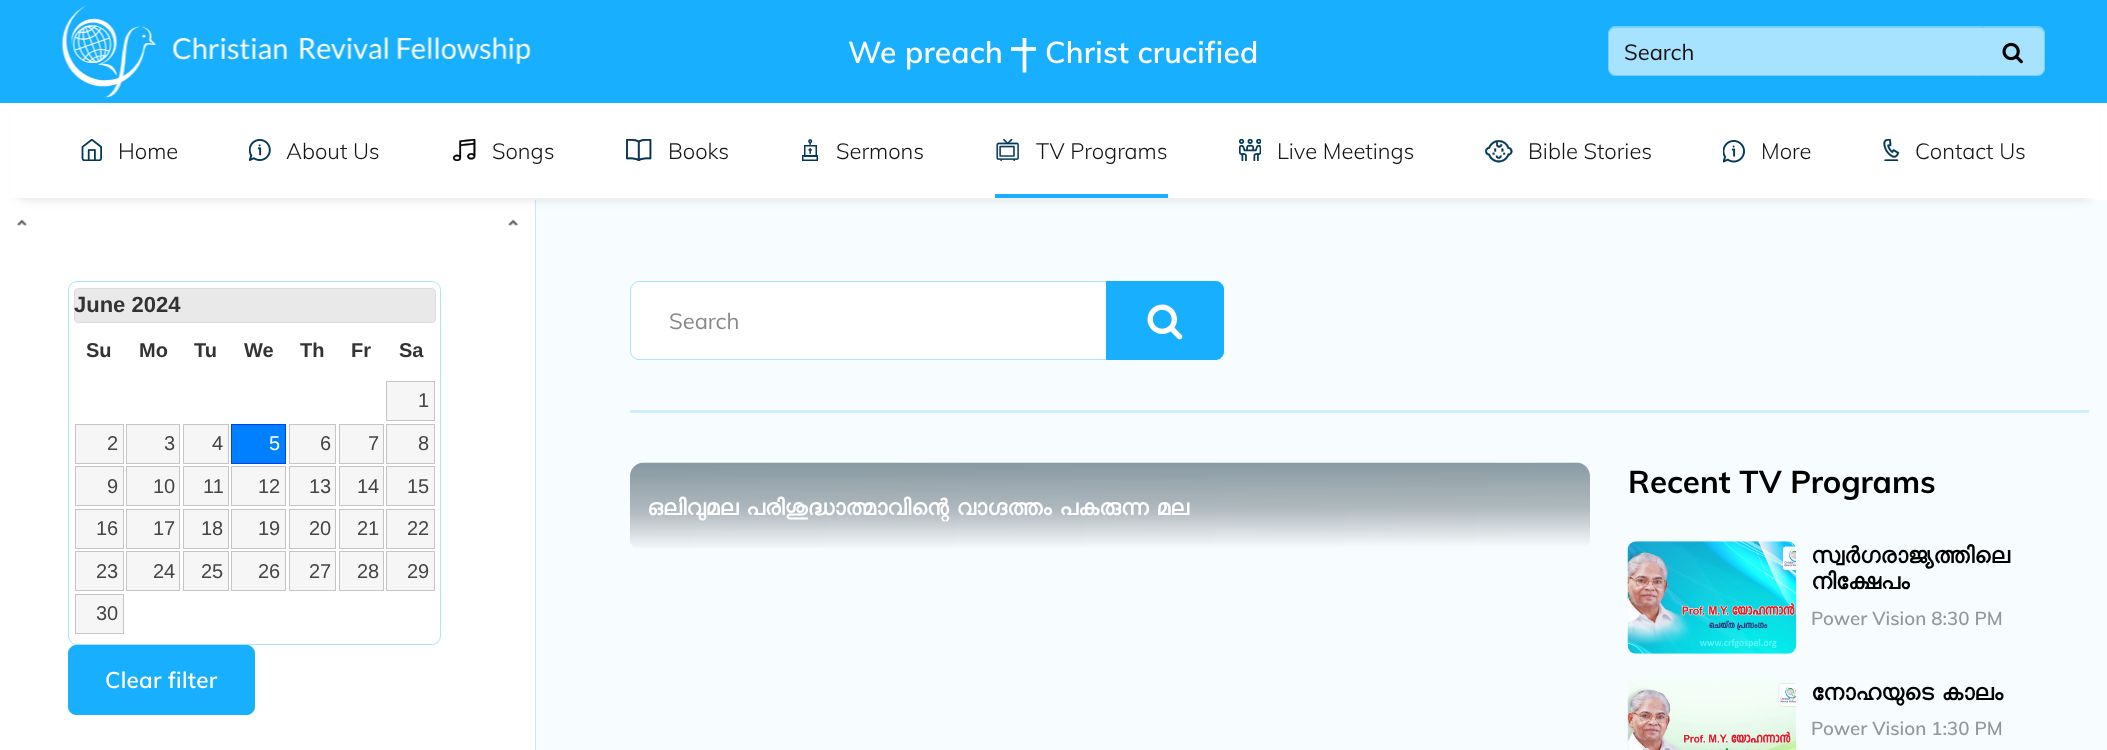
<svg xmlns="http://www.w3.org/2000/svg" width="2107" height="750">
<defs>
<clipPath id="clip1"><rect x="1011" y="38" width="25" height="35"/></clipPath>
</defs>
<rect width="100%" height="100%" fill="#fff"/>
<rect x="536" y="200" width="1571" height="550" fill="#f7fdff"/>
<rect x="535" y="200" width="1" height="550" fill="#bfeaff"/>
<rect x="19" y="38" width="2070" height="160" fill="#5a5a5a3b" filter="blur(6px)"/>
<rect x="10" y="103" width="2088" height="95" fill="#fff"/>
<rect width="2107" height="103" fill="#19afff"/>
<image x="62" y="5" width="469" height="93" href="media/1.png"/>
<text x="848" y="63" style="font-family:Muli;font-size:30px;font-weight:600;letter-spacing:0.25px;fill:#fff">We preach</text>
<g clip-path="url(#clip1)">
<path d="M1024.5 37.5v35" fill="none" stroke="#fff" stroke-width="3.7"/>
</g>
<text x="1045" y="63" style="font-family:Muli;font-size:30px;font-weight:600;letter-spacing:0.25px;fill:#fff">Christ crucified</text>
<rect x="1011" y="47" width="25" height="4" fill="#ffffffed"/>
<path d="M1616 26h368v50h-368c-4.5 0-8-3.5-8-8v-34c0-4.5 3.5-8 8-8z" fill="#a7e2ff"/>
<path d="M1616 26h368v50h-368c-5 0-8-3-8-8v-34c0-4 3-8 8-8zm0 2h368v47h-368c-4 0-7-3-7-7v-34c0-3 3-6 7-6z" fill="#2eb9ff66" fill-rule="evenodd"/>
<text x="1624" y="60" style="font-family:Muli;font-size:22px;fill:#141414">Search</text>
<path d="M1983 26h54c4.5 0 8 3.5 8 8v34c0 4.5-3.5 8-8 8h-54z" fill="#a7e2ff"/>
<path d="M1982 26h55c4 0 8 4 8 8v34c0 5-4 8-8 8h-55zm0 2h55c4 0 7 3 7 6v34c0 4-3 7-7 7h-55z" fill="#2eb9ff66" fill-rule="evenodd"/>
<image x="2002" y="42" width="21" height="22" href="media/2.png"/>
<image x="81" y="139" width="21" height="22" href="media/3.png"/>
<text x="118" y="159" style="font-family:Muli;font-size:22px;font-weight:300;fill:#141414">Home</text>
<image x="249" y="139" width="22" height="22" href="media/4.png"/>
<text x="286" y="159" style="font-family:Muli;font-size:22px;font-weight:300;fill:#141414">About Us</text>
<image x="452" y="139" width="24" height="22" href="media/5.png"/>
<text x="492" y="159" style="font-family:Muli;font-size:22px;font-weight:300;fill:#141414">Songs</text>
<image x="626" y="139" width="26" height="22" href="media/6.png"/>
<text x="668" y="159" style="font-family:Muli;font-size:22px;font-weight:300;fill:#141414">Books</text>
<image x="802" y="139" width="16" height="22" href="media/7.png"/>
<text x="836" y="159" style="font-family:Muli;font-size:22px;font-weight:300;fill:#141414">Sermons</text>
<image x="996" y="139" width="23" height="22" href="media/8.png"/>
<text x="1036" y="159" style="font-family:Muli;font-size:22px;font-weight:300;fill:#141414">TV Programs</text>
<rect x="995" y="194" width="173" height="4" fill="#19afff"/>
<image x="1239" y="139" width="22" height="22" href="media/9.png"/>
<text x="1277" y="159" style="font-family:Muli;font-size:22px;font-weight:300;fill:#141414">Live Meetings</text>
<image x="1485" y="140" width="28" height="23" href="media/10.png"/>
<text x="1528" y="159" style="font-family:Muli;font-size:22px;font-weight:300;fill:#141414">Bible Stories</text>
<image x="1723" y="140" width="22" height="23" href="media/11.png"/>
<text x="1761" y="159" style="font-family:Muli;font-size:22px;font-weight:300;fill:#141414">More</text>
<image x="1883" y="139" width="17" height="22" href="media/12.png"/>
<text x="1915" y="159" style="font-family:Muli;font-size:22px;font-weight:300;fill:#141414">Contact Us</text>
<rect x="68.5" y="281.5" width="372" height="363" rx="8.5" fill="none" stroke="#abe3ff"/>
<rect x="74.5" y="288.5" width="361" height="34" rx="3.5" fill="#e9e9e9" stroke="#ddd"/>
<image x="17" y="219" width="10" height="7" href="media/13.png"/>
<image x="508" y="219" width="11" height="7" href="media/14.png"/>
<text x="74" y="312" style="font-family:Liberation Sans;font-size:22px;font-weight:bold;fill:#333">June 2024</text>
<text x="86" y="357" style="font-family:Liberation Sans;font-size:20px;font-weight:bold;fill:#333">Su</text>
<text x="139" y="357" style="font-family:Liberation Sans;font-size:20px;font-weight:bold;fill:#333">Mo</text>
<text x="194" y="357" style="font-family:Liberation Sans;font-size:20px;font-weight:bold;fill:#333">Tu</text>
<text x="244" y="357" style="font-family:Liberation Sans;font-size:20px;font-weight:bold;fill:#333">We</text>
<text x="300" y="357" style="font-family:Liberation Sans;font-size:20px;font-weight:bold;fill:#333">Th</text>
<text x="351" y="357" style="font-family:Liberation Sans;font-size:20px;font-weight:bold;fill:#333">Fr</text>
<text x="399" y="357" style="font-family:Liberation Sans;font-size:20px;font-weight:bold;fill:#333">Sa</text>
<rect x="386.5" y="381.5" width="48" height="39" fill="#f6f6f6" stroke="#c5c5c5"/>
<text x="418" y="407" style="font-family:Liberation Sans;font-size:20px;fill:#454545">1</text>
<rect x="75.5" y="424.5" width="48" height="39" fill="#f6f6f6" stroke="#c5c5c5"/>
<text x="107" y="450" style="font-family:Liberation Sans;font-size:20px;fill:#454545">2</text>
<rect x="126.5" y="424.5" width="53" height="39" fill="#f6f6f6" stroke="#c5c5c5"/>
<text x="164" y="450" style="font-family:Liberation Sans;font-size:20px;fill:#454545">3</text>
<rect x="183.5" y="424.5" width="45" height="39" fill="#f6f6f6" stroke="#c5c5c5"/>
<text x="212" y="450" style="font-family:Liberation Sans;font-size:20px;fill:#454545">4</text>
<rect x="231.5" y="424.5" width="54" height="39" fill="#007fff" stroke="#003eff"/>
<text x="269" y="450" style="font-family:Liberation Sans;font-size:20px;fill:#fff">5</text>
<rect x="289.5" y="424.5" width="46" height="39" fill="#f6f6f6" stroke="#c5c5c5"/>
<text x="320" y="450" style="font-family:Liberation Sans;font-size:20px;fill:#454545">6</text>
<rect x="339.5" y="424.5" width="44" height="39" fill="#f6f6f6" stroke="#c5c5c5"/>
<text x="368" y="450" style="font-family:Liberation Sans;font-size:20px;fill:#454545">7</text>
<rect x="386.5" y="424.5" width="48" height="39" fill="#f6f6f6" stroke="#c5c5c5"/>
<text x="418" y="450" style="font-family:Liberation Sans;font-size:20px;fill:#454545">8</text>
<rect x="75.5" y="466.5" width="48" height="39" fill="#f6f6f6" stroke="#c5c5c5"/>
<text x="107" y="493" style="font-family:Liberation Sans;font-size:20px;fill:#454545">9</text>
<rect x="126.5" y="466.5" width="53" height="39" fill="#f6f6f6" stroke="#c5c5c5"/>
<text x="153" y="493" style="font-family:Liberation Sans;font-size:20px;fill:#454545">10</text>
<rect x="183.5" y="466.5" width="45" height="39" fill="#f6f6f6" stroke="#c5c5c5"/>
<text x="203" y="493" style="font-family:Liberation Sans;font-size:20px;fill:#454545">11</text>
<rect x="231.5" y="466.5" width="54" height="39" fill="#f6f6f6" stroke="#c5c5c5"/>
<text x="258" y="493" style="font-family:Liberation Sans;font-size:20px;fill:#454545">12</text>
<rect x="289.5" y="466.5" width="46" height="39" fill="#f6f6f6" stroke="#c5c5c5"/>
<text x="309" y="493" style="font-family:Liberation Sans;font-size:20px;fill:#454545">13</text>
<rect x="339.5" y="466.5" width="44" height="39" fill="#f6f6f6" stroke="#c5c5c5"/>
<text x="357" y="493" style="font-family:Liberation Sans;font-size:20px;fill:#454545">14</text>
<rect x="386.5" y="466.5" width="48" height="39" fill="#f6f6f6" stroke="#c5c5c5"/>
<text x="407" y="493" style="font-family:Liberation Sans;font-size:20px;fill:#454545">15</text>
<rect x="75.5" y="509.5" width="48" height="39" fill="#f6f6f6" stroke="#c5c5c5"/>
<text x="96" y="535" style="font-family:Liberation Sans;font-size:20px;fill:#454545">16</text>
<rect x="126.5" y="509.5" width="53" height="39" fill="#f6f6f6" stroke="#c5c5c5"/>
<text x="153" y="535" style="font-family:Liberation Sans;font-size:20px;fill:#454545">17</text>
<rect x="183.5" y="509.5" width="45" height="39" fill="#f6f6f6" stroke="#c5c5c5"/>
<text x="201" y="535" style="font-family:Liberation Sans;font-size:20px;fill:#454545">18</text>
<rect x="231.5" y="509.5" width="54" height="39" fill="#f6f6f6" stroke="#c5c5c5"/>
<text x="258" y="535" style="font-family:Liberation Sans;font-size:20px;fill:#454545">19</text>
<rect x="289.5" y="509.5" width="46" height="39" fill="#f6f6f6" stroke="#c5c5c5"/>
<text x="309" y="535" style="font-family:Liberation Sans;font-size:20px;fill:#454545">20</text>
<rect x="339.5" y="509.5" width="44" height="39" fill="#f6f6f6" stroke="#c5c5c5"/>
<text x="357" y="535" style="font-family:Liberation Sans;font-size:20px;fill:#454545">21</text>
<rect x="386.5" y="509.5" width="48" height="39" fill="#f6f6f6" stroke="#c5c5c5"/>
<text x="407" y="535" style="font-family:Liberation Sans;font-size:20px;fill:#454545">22</text>
<rect x="75.5" y="551.5" width="48" height="39" fill="#f6f6f6" stroke="#c5c5c5"/>
<text x="96" y="578" style="font-family:Liberation Sans;font-size:20px;fill:#454545">23</text>
<rect x="126.5" y="551.5" width="53" height="39" fill="#f6f6f6" stroke="#c5c5c5"/>
<text x="153" y="578" style="font-family:Liberation Sans;font-size:20px;fill:#454545">24</text>
<rect x="183.5" y="551.5" width="45" height="39" fill="#f6f6f6" stroke="#c5c5c5"/>
<text x="201" y="578" style="font-family:Liberation Sans;font-size:20px;fill:#454545">25</text>
<rect x="231.5" y="551.5" width="54" height="39" fill="#f6f6f6" stroke="#c5c5c5"/>
<text x="258" y="578" style="font-family:Liberation Sans;font-size:20px;fill:#454545">26</text>
<rect x="289.5" y="551.5" width="46" height="39" fill="#f6f6f6" stroke="#c5c5c5"/>
<text x="309" y="578" style="font-family:Liberation Sans;font-size:20px;fill:#454545">27</text>
<rect x="339.5" y="551.5" width="44" height="39" fill="#f6f6f6" stroke="#c5c5c5"/>
<text x="357" y="578" style="font-family:Liberation Sans;font-size:20px;fill:#454545">28</text>
<rect x="386.5" y="551.5" width="48" height="39" fill="#f6f6f6" stroke="#c5c5c5"/>
<text x="407" y="578" style="font-family:Liberation Sans;font-size:20px;fill:#454545">29</text>
<rect x="75.5" y="594.5" width="48" height="39" fill="#f6f6f6" stroke="#c5c5c5"/>
<text x="96" y="620" style="font-family:Liberation Sans;font-size:20px;fill:#454545">30</text>
<rect x="68.5" y="645.5" width="186" height="69" rx="7.5" fill="#19afff" stroke="#19afff"/>
<text x="105" y="688" style="font-family:Muli;font-size:22.5px;font-weight:600;letter-spacing:0.25px;fill:#fff">Clear filter</text>
<rect x="630" y="410" width="1459" height="3" fill="#cfefff"/>
<path d="M639 283h467v76h-467c-4.5 0-8-3.5-8-8v-60c0-4.5 3.5-8 8-8z" fill="#fff"/>
<path d="M639 281.5h468.5v78h-468.5c-4.5 0-8.5-4-8.5-8.5v-61c0-4.5 4-8.5 8.5-8.5z" fill="none" stroke="#a7e2ff"/>
<text x="669" y="329" style="font-family:Muli;font-size:22px;fill:#898989">Search</text>
<path d="M1106.5 281.5h109.5c4 0 7.5 3.5 7.5 7.5v63c0 4-3.5 7.5-7.5 7.5h-109.5z" fill="#19afff" stroke="#19afff"/>
<image x="1147" y="304" width="36" height="36" href="media/15.png"/>
<image x="630" y="462" width="960" height="86" href="media/16.png"/>
<text x="647" y="515" word-spacing="-1" style="font-family:FreeSans;font-size:22px;font-weight:bold;fill:#fff">ഒലിവുമല പരിശുദ്ധാത്മാവിന്റെ വാഗ്ദത്തം പകരുന്ന മല</text>
<text x="1628" y="493" style="font-family:Muli;font-size:31.25px;font-weight:bold;fill:#000">Recent TV Programs</text>
<image x="1627" y="541" width="170" height="113" href="media/17.png"/>
<text x="1811" y="563" style="font-family:FreeSans;font-size:22.5px;font-weight:bold;fill:#000">സ്വർഗരാജ്യത്തിലെ</text>
<text x="1811" y="589" style="font-family:FreeSans;font-size:22.5px;font-weight:bold;fill:#000">നിക്ഷേപം</text>
<text x="1811" y="625" style="font-family:Muli;font-size:18.75px;font-weight:600;fill:#949899">Power Vision 8:30 PM</text>
<image x="1627" y="679" width="170" height="71" href="media/18.png"/>
<text x="1811" y="700" word-spacing="-1" style="font-family:FreeSans;font-size:22.5px;font-weight:bold;fill:#000">നോഹയുടെ കാലം</text>
<text x="1811" y="735" style="font-family:Muli;font-size:18.75px;font-weight:600;fill:#949899">Power Vision 1:30 PM</text>
</svg>
